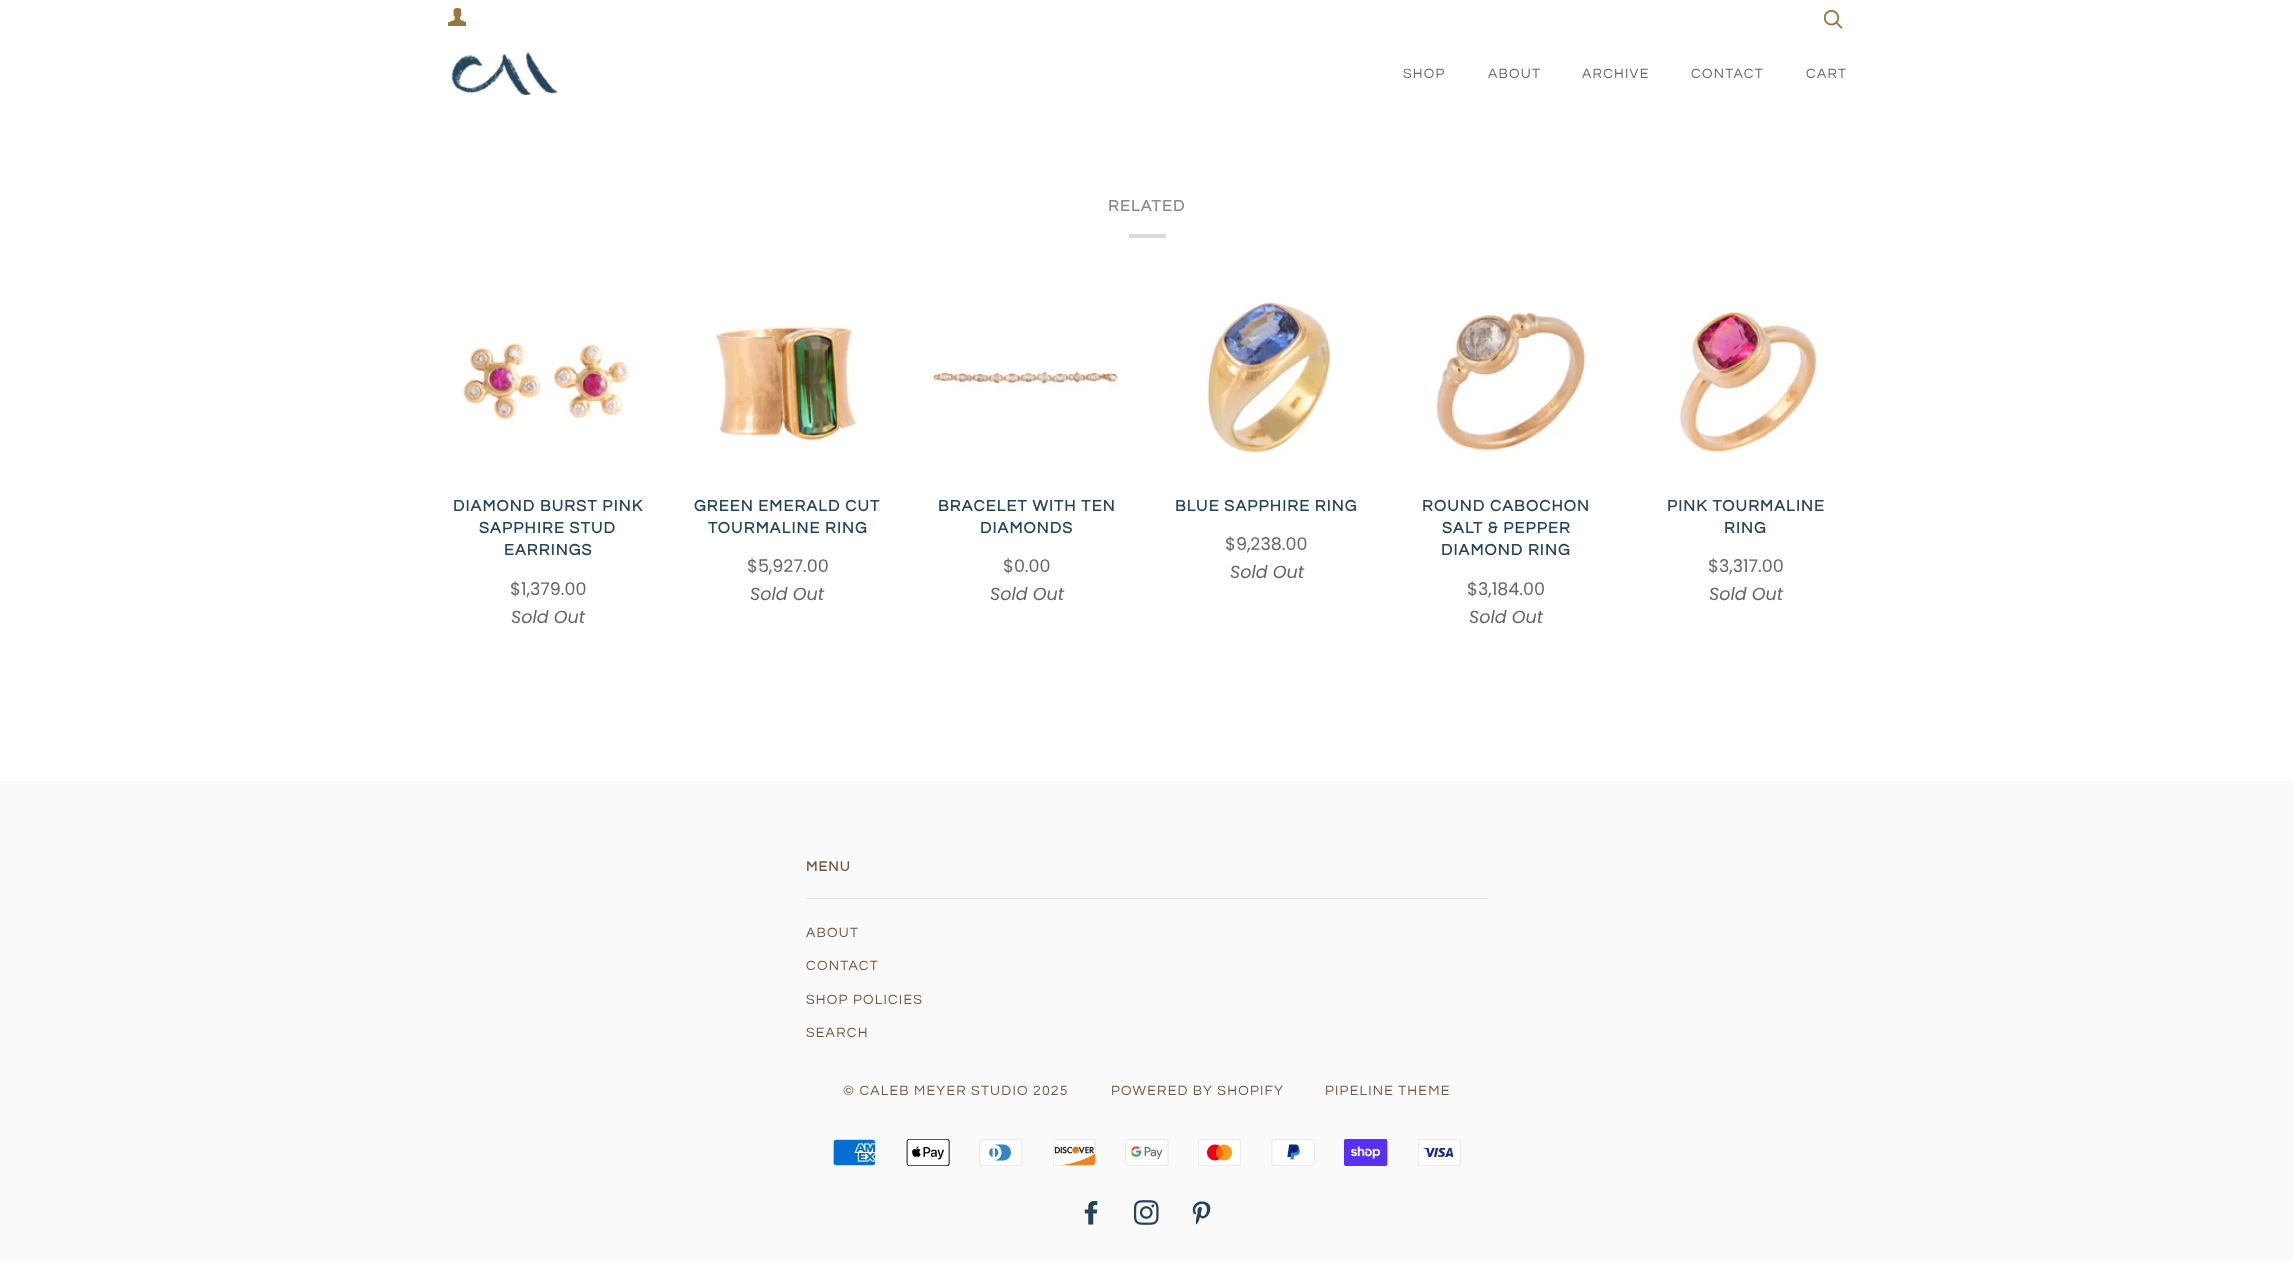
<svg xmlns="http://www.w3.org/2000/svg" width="2293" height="1261">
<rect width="100%" height="100%" fill="#fff"/>
<image x="448" y="8" width="18" height="18" href="media/1.png"/>
<image x="1824" y="10" width="19" height="19" href="media/2.png"/>
<image x="451" y="51" width="107" height="45" href="media/3.png"/>
<text x="1403" y="78" style="font-family:Questrial;font-size:14px;letter-spacing:1.25px;fill:#656565">SHOP</text>
<text x="1488" y="78" style="font-family:Questrial;font-size:14px;letter-spacing:1.25px;fill:#656565">ABOUT</text>
<text x="1582" y="78" style="font-family:Questrial;font-size:14px;letter-spacing:1.25px;fill:#656565">ARCHIVE</text>
<text x="1691" y="78" style="font-family:Questrial;font-size:14px;letter-spacing:1.25px;fill:#656565">CONTACT</text>
<text x="1806" y="78" style="font-family:Questrial;font-size:14px;letter-spacing:1.25px;fill:#656565">CART</text>
<text x="1108" y="211" style="font-family:Questrial;font-size:16px;font-weight:bold;letter-spacing:1.25px;fill:#8c8c8c">RELATED</text>
<rect x="1129" y="234" width="37" height="4" fill="#d9d9d9"/>
<image x="463" y="340" width="166" height="80" href="media/4.png"/>
<text x="453" y="511" style="font-family:Questrial;font-size:16px;font-weight:bold;letter-spacing:1.25px;fill:#25445c">DIAMOND BURST PINK</text>
<text x="479" y="533" style="font-family:Questrial;font-size:16px;font-weight:bold;letter-spacing:1.25px;fill:#25445c">SAPPHIRE STUD</text>
<text x="504" y="555" style="font-family:Questrial;font-size:16px;font-weight:bold;letter-spacing:1.25px;fill:#25445c">EARRINGS</text>
<text x="510" y="595" style="font-family:Poppins;font-size:17.5px;fill:#656565">$1,379.00</text>
<text x="511" y="623" style="font-family:Poppins;font-size:17.5px;font-style:italic;fill:#656565">Sold Out</text>
<image x="713" y="326" width="144" height="119" href="media/5.png"/>
<text x="694" y="511" style="font-family:Questrial;font-size:16px;font-weight:bold;letter-spacing:1.25px;fill:#25445c">GREEN EMERALD CUT</text>
<text x="708" y="533" style="font-family:Questrial;font-size:16px;font-weight:bold;letter-spacing:1.25px;fill:#25445c">TOURMALINE RING</text>
<text x="747" y="572" style="font-family:Poppins;font-size:17.5px;fill:#656565">$5,927.00</text>
<text x="750" y="600" style="font-family:Poppins;font-size:17.5px;font-style:italic;fill:#656565">Sold Out</text>
<image x="926" y="371" width="193" height="19" href="media/6.png"/>
<text x="938" y="511" style="font-family:Questrial;font-size:16px;font-weight:bold;letter-spacing:1.25px;fill:#25445c">BRACELET WITH TEN</text>
<text x="980" y="533" style="font-family:Questrial;font-size:16px;font-weight:bold;letter-spacing:1.25px;fill:#25445c">DIAMONDS</text>
<text x="1003" y="572" style="font-family:Poppins;font-size:17.5px;fill:#656565">$0.00</text>
<text x="990" y="600" style="font-family:Poppins;font-size:17.5px;font-style:italic;fill:#656565">Sold Out</text>
<image x="1207" y="301" width="124" height="154" href="media/7.png"/>
<text x="1175" y="511" style="font-family:Questrial;font-size:16px;font-weight:bold;letter-spacing:1.25px;fill:#25445c">BLUE SAPPHIRE RING</text>
<text x="1225" y="550" style="font-family:Poppins;font-size:17.5px;fill:#656565">$9,238.00</text>
<text x="1230" y="578" style="font-family:Poppins;font-size:17.5px;font-style:italic;fill:#656565">Sold Out</text>
<image x="1436" y="311" width="150" height="144" href="media/8.png"/>
<text x="1422" y="511" style="font-family:Questrial;font-size:16px;font-weight:bold;letter-spacing:1.25px;fill:#25445c">ROUND CABOCHON</text>
<text x="1442" y="533" style="font-family:Questrial;font-size:16px;font-weight:bold;letter-spacing:1.25px;fill:#25445c">SALT &amp; PEPPER</text>
<text x="1441" y="555" style="font-family:Questrial;font-size:16px;font-weight:bold;letter-spacing:1.25px;fill:#25445c">DIAMOND RING</text>
<text x="1467" y="595" style="font-family:Poppins;font-size:17.5px;fill:#656565">$3,184.00</text>
<text x="1469" y="623" style="font-family:Poppins;font-size:17.5px;font-style:italic;fill:#656565">Sold Out</text>
<image x="1679" y="311" width="138" height="143" href="media/9.png"/>
<text x="1667" y="511" style="font-family:Questrial;font-size:16px;font-weight:bold;letter-spacing:1.25px;fill:#25445c">PINK TOURMALINE</text>
<text x="1724" y="533" style="font-family:Questrial;font-size:16px;font-weight:bold;letter-spacing:1.25px;fill:#25445c">RING</text>
<text x="1708" y="572" style="font-family:Poppins;font-size:17.5px;fill:#656565">$3,317.00</text>
<text x="1709" y="600" style="font-family:Poppins;font-size:17.5px;font-style:italic;fill:#656565">Sold Out</text>
<rect y="781" width="2293" height="480" fill="#fafafa"/>
<text x="806" y="871" style="font-family:Questrial;font-size:14px;font-weight:bold;letter-spacing:1.25px;fill:#77543c">MENU</text>
<rect x="806" y="898" width="682" height="1" fill="#e6e1de"/>
<text x="806" y="937" style="font-family:Questrial;font-size:14px;letter-spacing:1.25px;fill:#77543c">ABOUT</text>
<text x="806" y="970" style="font-family:Questrial;font-size:14px;letter-spacing:1.25px;fill:#77543c">CONTACT</text>
<text x="806" y="1004" style="font-family:Questrial;font-size:14px;letter-spacing:1.25px;fill:#77543c">SHOP POLICIES</text>
<text x="806" y="1037" style="font-family:Questrial;font-size:14px;letter-spacing:1.25px;fill:#77543c">SEARCH</text>
<text x="843" y="1095" style="font-family:Questrial;font-size:14px;letter-spacing:1.25px;fill:#77543c">© CALEB MEYER STUDIO 2025</text>
<text x="1111" y="1095" style="font-family:Questrial;font-size:14px;letter-spacing:1.25px;fill:#77543c">POWERED BY SHOPIFY</text>
<text x="1325" y="1095" style="font-family:Questrial;font-size:14px;letter-spacing:1.25px;fill:#77543c">PIPELINE THEME</text>
<image x="833" y="1139" width="43" height="27" href="media/10.png"/>
<image x="906" y="1139" width="44" height="27" href="media/11.png"/>
<image x="979" y="1139" width="44" height="27" href="media/12.png"/>
<image x="1053" y="1139" width="43" height="27" href="media/13.png"/>
<image x="1125" y="1139" width="44" height="27" href="media/14.png"/>
<image x="1198" y="1139" width="43" height="27" href="media/15.png"/>
<image x="1271" y="1139" width="44" height="27" href="media/16.png"/>
<image x="1344" y="1139" width="44" height="27" href="media/17.png"/>
<image x="1418" y="1139" width="43" height="27" href="media/18.png"/>
<image x="1084" y="1201" width="14" height="24" href="media/19.png"/>
<image x="1133" y="1200" width="26" height="25" href="media/20.png"/>
<image x="1192" y="1201" width="19" height="24" href="media/21.png"/>
</svg>
